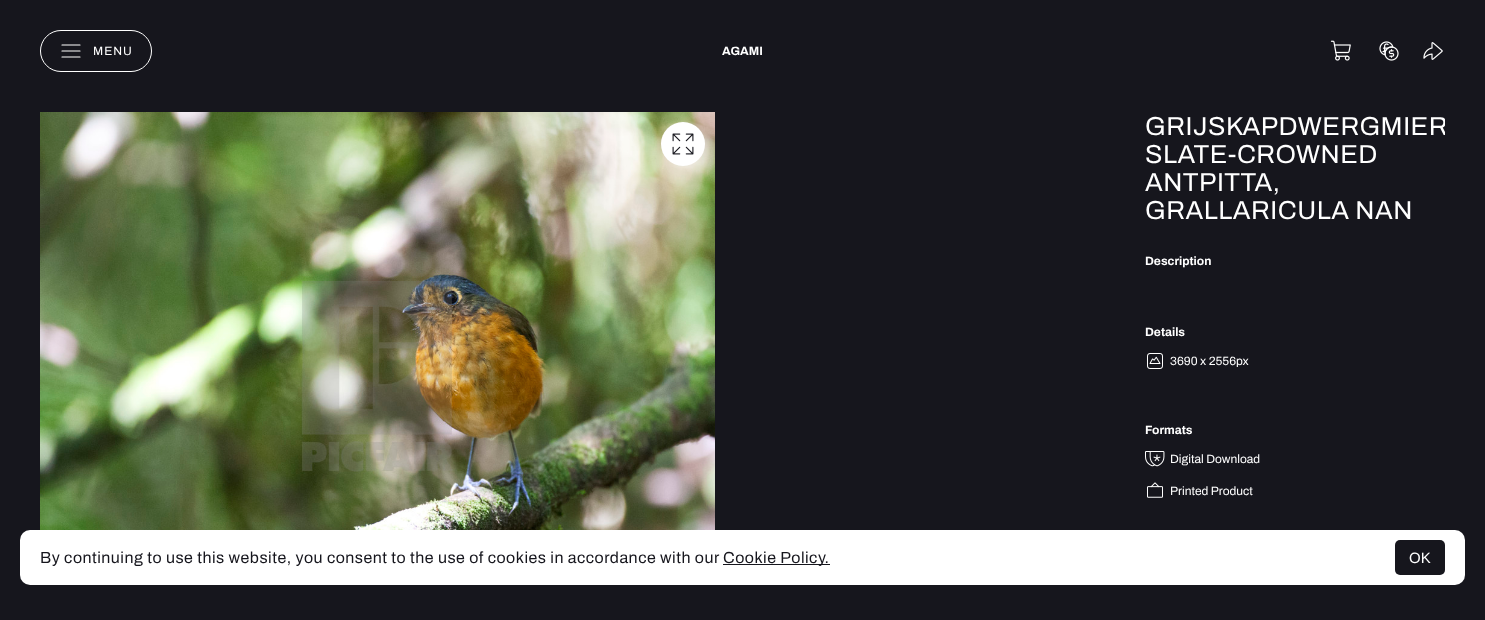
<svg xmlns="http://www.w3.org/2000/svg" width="1485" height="620">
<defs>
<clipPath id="clip1"><rect x="40" y="112" width="1405" height="468"/></clipPath>
</defs>
<rect width="100%" height="100%" fill="#16161d"/>
<rect x="40.5" y="30.5" width="111" height="41" rx="20.5" fill="none" stroke="#fff"/>
<path d="M62 51h18m-18-6h18m-18 12h18" fill="none" stroke="#fff" stroke-width="1.2" stroke-linecap="round" stroke-linejoin="round"/>
<text x="93" y="55" style="font-family:Archivo;font-size:12px;letter-spacing:1px;fill:#fff">MENU</text>
<text x="722" y="55" style="font-family:Archivo;font-size:12px;font-weight:bold;fill:#fff">AGAMI</text>
<image x="1330" y="40" width="21" height="21" href="media/1.png"/>
<image x="1379" y="41" width="20" height="20" href="media/2.png"/>
<image x="1423" y="42" width="20" height="18" href="media/3.png"/>
<image x="40" y="112" width="675" height="418" href="media/4.png"/>
<circle cx="683" cy="144" r="22" fill="#fff"/>
<image x="672" y="133" width="22" height="22" href="media/5.png"/>
<g clip-path="url(#clip1)">
<text x="1145" y="135" style="font-family:Archivo;font-size:26px;letter-spacing:0.5px;fill:#fff">GRIJSKAPDWERGMIER</text>
</g>
<text x="1145" y="163" style="font-family:Archivo;font-size:26px;letter-spacing:0.5px;fill:#fff">SLATE-CROWNED</text>
<text x="1145" y="191" style="font-family:Archivo;font-size:26px;letter-spacing:0.5px;fill:#fff">ANTPITTA,</text>
<text x="1145" y="219" style="font-family:Archivo;font-size:26px;letter-spacing:0.5px;fill:#fff">GRALLARICULA NAN</text>
<text x="1145" y="265" style="font-family:Archivo;font-size:12px;font-weight:bold;fill:#fff">Description</text>
<text x="1145" y="336" style="font-family:Archivo;font-size:12px;font-weight:bold;fill:#fff">Details</text>
<image x="1147" y="353" width="16" height="16" href="media/6.png"/>
<text x="1170" y="365" style="font-family:Archivo;font-size:12px;fill:#fff">3690 x 2556px</text>
<text x="1145" y="434" style="font-family:Archivo;font-size:12px;font-weight:bold;fill:#fff">Formats</text>
<image x="1145" y="451" width="20" height="16" href="media/7.png"/>
<text x="1170" y="463" style="font-family:Archivo;font-size:12px;fill:#fff">Digital Download</text>
<image x="1147" y="482" width="16" height="16" href="media/8.png"/>
<text x="1170" y="495" style="font-family:Archivo;font-size:12px;fill:#fff">Printed Product</text>
<rect x="20" y="530" width="1445" height="55" rx="10" fill="#fff"/>
<text x="40" y="563" style="font-family:Archivo;font-size:16px;letter-spacing:0.5px;fill:#16161d">By continuing to use this website, you consent to the use of cookies in accordance with our</text>
<rect x="723" y="564" width="107" height="1" fill="#16161d"/>
<text x="723" y="563" style="font-family:Archivo;font-size:16px;letter-spacing:0.5px;fill:#16161d">Cookie Policy.</text>
<rect x="1395" y="540" width="50" height="35" rx="5" fill="#16161d"/>
<text x="1409" y="563" style="font-family:Liberation Sans;font-size:15px;fill:#fff">OK</text>
</svg>
